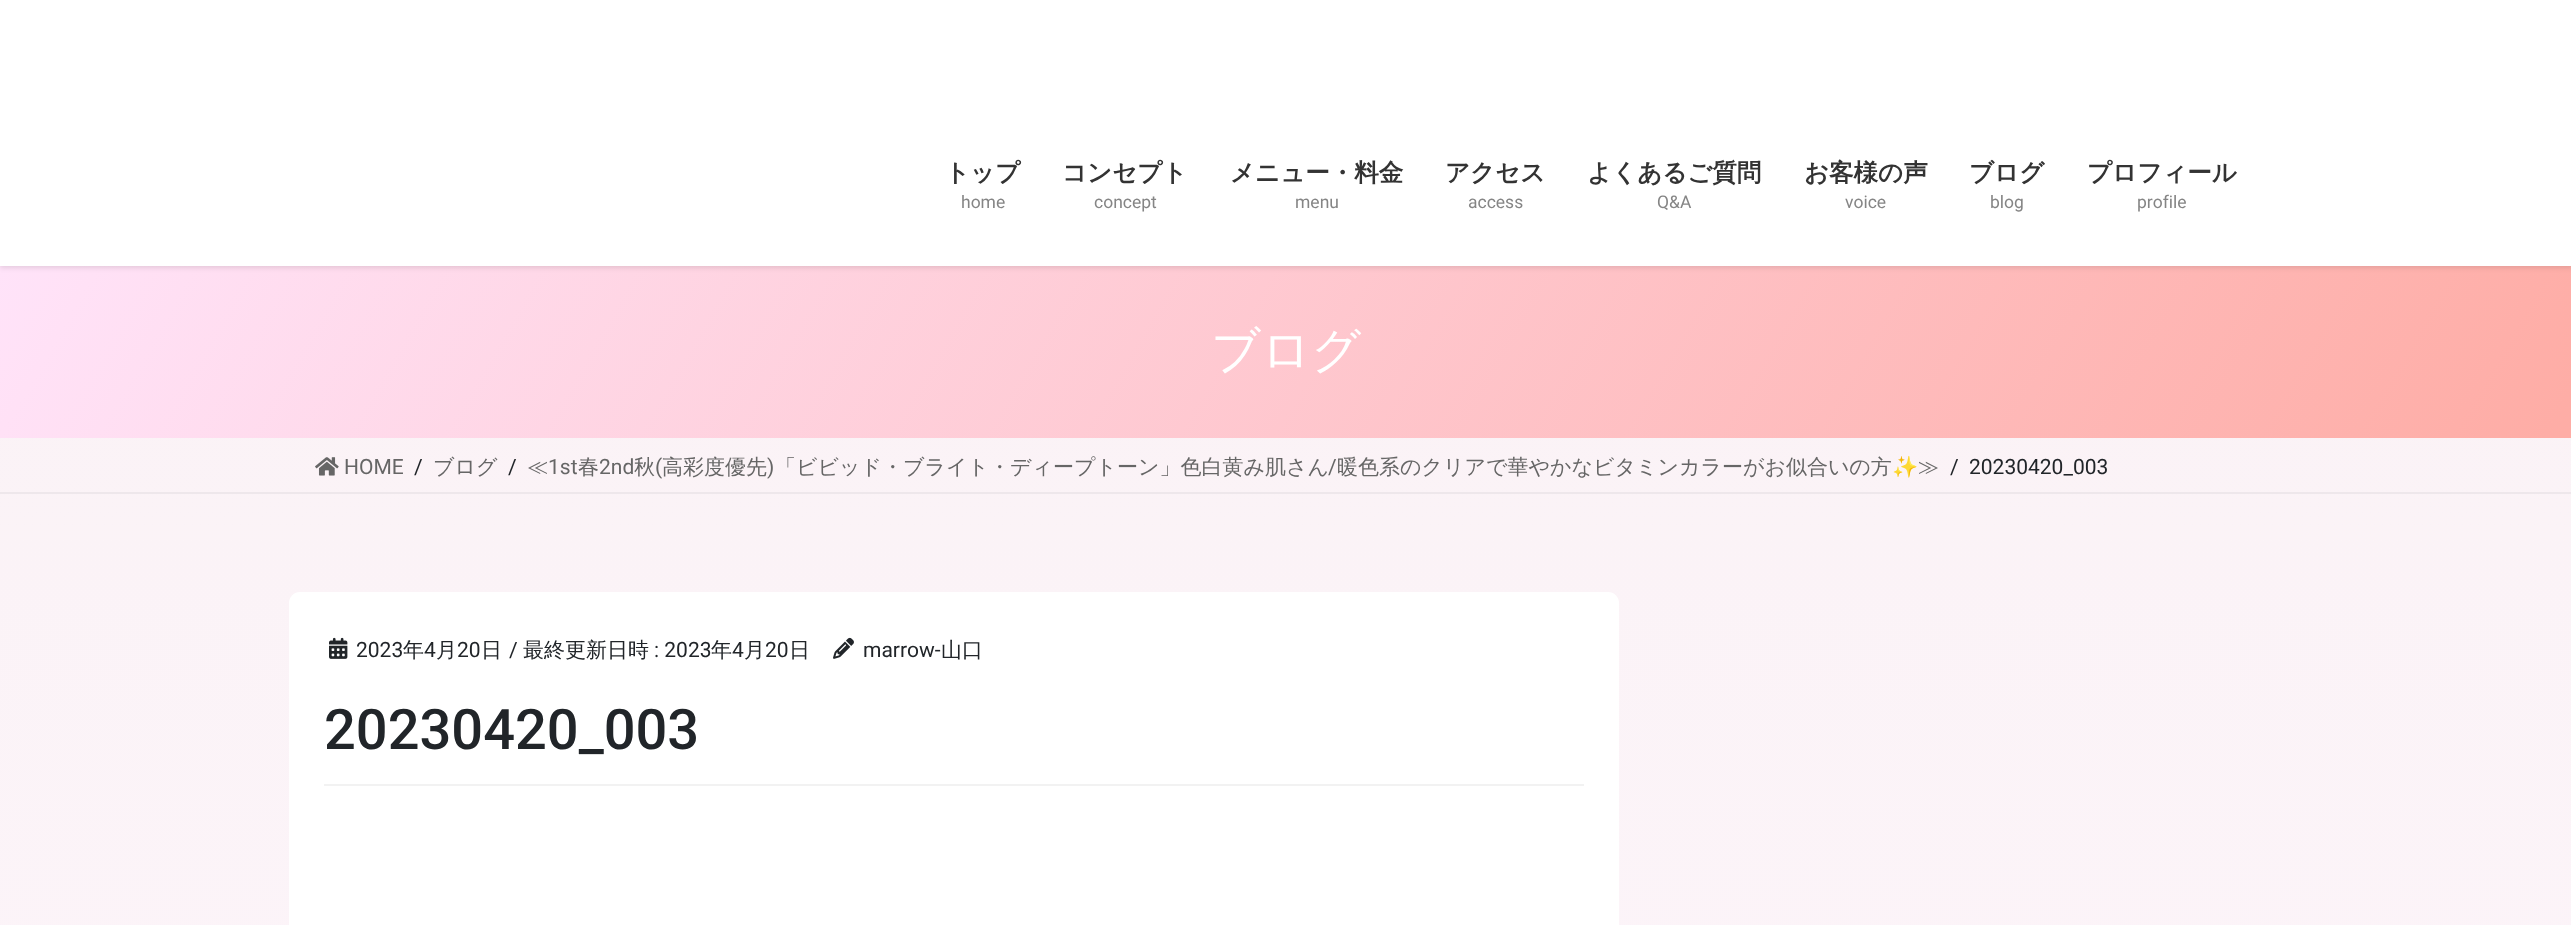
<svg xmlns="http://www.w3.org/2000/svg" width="2571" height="925">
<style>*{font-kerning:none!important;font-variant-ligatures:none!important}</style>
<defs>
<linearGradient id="g1" gradientUnits="userSpaceOnUse" x1="1286" y1="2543" x2="1286" y2="0"><stop offset="0" stop-color="#fff7fe"/><stop offset="0.99" stop-color="#faf2f5"/><stop offset="1" stop-color="#faf2f5"/></linearGradient>
<linearGradient id="g2" gradientUnits="userSpaceOnUse" x1="284" y1="-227" x2="2288" y2="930"><stop offset="0" stop-color="#ffe3f9"/><stop offset="0.99" stop-color="#feada6"/><stop offset="1" stop-color="#feada6"/></linearGradient>
</defs>
<rect width="100%" height="100%" fill="#fff"/>
<rect y="438" width="2571" height="487" fill="url(#g1)"/>
<rect y="266" width="2571" height="172" fill="url(#g2)"/>
<rect y="2" width="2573" height="266" fill="#0000001a" filter="blur(2.5px)"/>
<rect width="2571" height="266" fill="#fff"/>
<text x="945" y="181" style="font-family:WenQuanYi Zen Hei;font-size:24.5px;font-weight:bold;fill:#333">トップ</text>
<text x="961" y="208" style="font-family:Roboto;font-size:17.5px;fill:#858585">home</text>
<text x="1062" y="181" style="font-family:WenQuanYi Zen Hei;font-size:24.5px;font-weight:bold;fill:#333">コンセプト</text>
<text x="1094" y="208" style="font-family:Roboto;font-size:17.5px;fill:#858585">concept</text>
<text x="1230" y="181" style="font-family:WenQuanYi Zen Hei;font-size:24.5px;font-weight:bold;fill:#333">メニュー・料金</text>
<text x="1295" y="208" style="font-family:Roboto;font-size:17.5px;fill:#858585">menu</text>
<text x="1445" y="181" style="font-family:WenQuanYi Zen Hei;font-size:24.5px;font-weight:bold;fill:#333">アクセス</text>
<text x="1468" y="208" style="font-family:Roboto;font-size:17.5px;fill:#858585">access</text>
<text x="1587" y="181" style="font-family:WenQuanYi Zen Hei;font-size:24.5px;font-weight:bold;fill:#333">よくあるご質問</text>
<text x="1657" y="208" style="font-family:Roboto;font-size:17.5px;fill:#858585">Q&amp;A</text>
<text x="1804" y="181" style="font-family:WenQuanYi Zen Hei;font-size:24.5px;font-weight:bold;fill:#333">お客様の声</text>
<text x="1845" y="208" style="font-family:Roboto;font-size:17.5px;fill:#858585">voice</text>
<text x="1969" y="181" style="font-family:WenQuanYi Zen Hei;font-size:24.5px;font-weight:bold;fill:#333">ブログ</text>
<text x="1990" y="208" style="font-family:Roboto;font-size:17.5px;fill:#858585">blog</text>
<text x="2087" y="181" style="font-family:WenQuanYi Zen Hei;font-size:24.5px;font-weight:bold;fill:#333">プロフィール</text>
<text x="2137" y="208" style="font-family:Roboto;font-size:17.5px;fill:#858585">profile</text>
<text x="1211" y="367" style="font-family:WenQuanYi Zen Hei;font-size:49px;font-weight:500;fill:#fff">ブログ</text>
<rect y="492" width="2571" height="2" fill="#eee7eb"/>
<image x="315" y="457" width="24" height="19" href="media/1.png"/>
<text x="344" y="474" style="font-family:Roboto;font-size:21px;fill:#666">HOME</text>
<text x="414" y="474" style="font-family:Roboto;font-size:21px;fill:#212529">/</text>
<text x="433" y="474" style="font-family:WenQuanYi Zen Hei;font-size:21px;font-weight:500;fill:#666">ブログ</text>
<text x="508" y="474" style="font-family:Roboto;font-size:21px;fill:#212529">/</text>
<text x="527" y="474" style="font-family:WenQuanYi Zen Hei;font-size:21px;font-weight:500;fill:#666">≪</text>
<text x="548" y="474" style="font-family:Roboto;font-size:21px;fill:#666">1st</text>
<text x="578" y="474" style="font-family:WenQuanYi Zen Hei;font-size:21px;font-weight:500;fill:#666">春</text>
<text x="599" y="474" style="font-family:Roboto;font-size:21px;fill:#666">2nd</text>
<text x="634" y="474" style="font-family:WenQuanYi Zen Hei;font-size:21px;font-weight:500;fill:#666">秋</text>
<text x="655" y="474" style="font-family:Roboto;font-size:21px;fill:#666">(</text>
<text x="662" y="474" style="font-family:WenQuanYi Zen Hei;font-size:21px;font-weight:500;fill:#666">高彩度優先</text>
<text x="767" y="474" style="font-family:Roboto;font-size:21px;fill:#666">)</text>
<text x="775" y="474" style="font-family:WenQuanYi Zen Hei;font-size:21px;font-weight:500;fill:#666">「ビビッド・ブライト・ディープトーン」色白黄み肌さん</text>
<text x="1328" y="474" style="font-family:Roboto;font-size:21px;fill:#666">/</text>
<text x="1337" y="474" style="font-family:WenQuanYi Zen Hei;font-size:21px;font-weight:500;fill:#666">暖色系のクリアで華やかなビタミンカラーがお似合いの方</text>
<text x="1892" y="474" style="font-family:Noto Color Emoji;font-size:21px;fill:#666">✨</text>
<text x="1918" y="474" style="font-family:WenQuanYi Zen Hei;font-size:21px;font-weight:500;fill:#666">≫</text>
<text x="1950" y="474" style="font-family:Roboto;font-size:21px;fill:#212529">/</text>
<text x="1969" y="474" style="font-family:Roboto;font-size:21px;fill:#212529">20230420_003</text>
<rect x="289" y="592" width="1330" height="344" rx="11" fill="#fff"/>
<rect x="324" y="784" width="1260" height="2" fill="#f2f2f2"/>
<image x="329" y="637" width="19" height="22" href="media/2.png"/>
<text x="356" y="657" style="font-family:Roboto;font-size:21px;fill:#212529">2023</text>
<text x="403" y="657" style="font-family:WenQuanYi Zen Hei;font-size:21px;font-weight:500;fill:#212529">年</text>
<text x="424" y="657" style="font-family:Roboto;font-size:21px;fill:#212529">4</text>
<text x="436" y="657" style="font-family:WenQuanYi Zen Hei;font-size:21px;font-weight:500;fill:#212529">月</text>
<text x="457" y="657" style="font-family:Roboto;font-size:21px;fill:#212529">20</text>
<text x="481" y="657" style="font-family:WenQuanYi Zen Hei;font-size:21px;font-weight:500;fill:#212529">日</text>
<text x="509" y="657" style="font-family:Roboto;font-size:21px;fill:#212529">/</text>
<text x="523" y="657" style="font-family:WenQuanYi Zen Hei;font-size:21px;font-weight:500;fill:#212529">最終更新日時</text>
<text x="654" y="657" style="font-family:Roboto;font-size:21px;fill:#212529">: 2023</text>
<text x="711" y="657" style="font-family:WenQuanYi Zen Hei;font-size:21px;font-weight:500;fill:#212529">年</text>
<text x="732" y="657" style="font-family:Roboto;font-size:21px;fill:#212529">4</text>
<text x="744" y="657" style="font-family:WenQuanYi Zen Hei;font-size:21px;font-weight:500;fill:#212529">月</text>
<text x="765" y="657" style="font-family:Roboto;font-size:21px;fill:#212529">20</text>
<text x="789" y="657" style="font-family:WenQuanYi Zen Hei;font-size:21px;font-weight:500;fill:#212529">日</text>
<image x="833" y="637" width="21" height="22" href="media/3.png"/>
<text x="863" y="657" style="font-family:Roboto;font-size:21px;fill:#212529">marrow-</text>
<text x="941" y="657" style="font-family:WenQuanYi Zen Hei;font-size:21px;font-weight:500;fill:#212529">山口</text>
<text x="324" y="749" style="font-family:Roboto;font-size:56px;font-weight:500;fill:#212529">20230420_003</text>
</svg>
